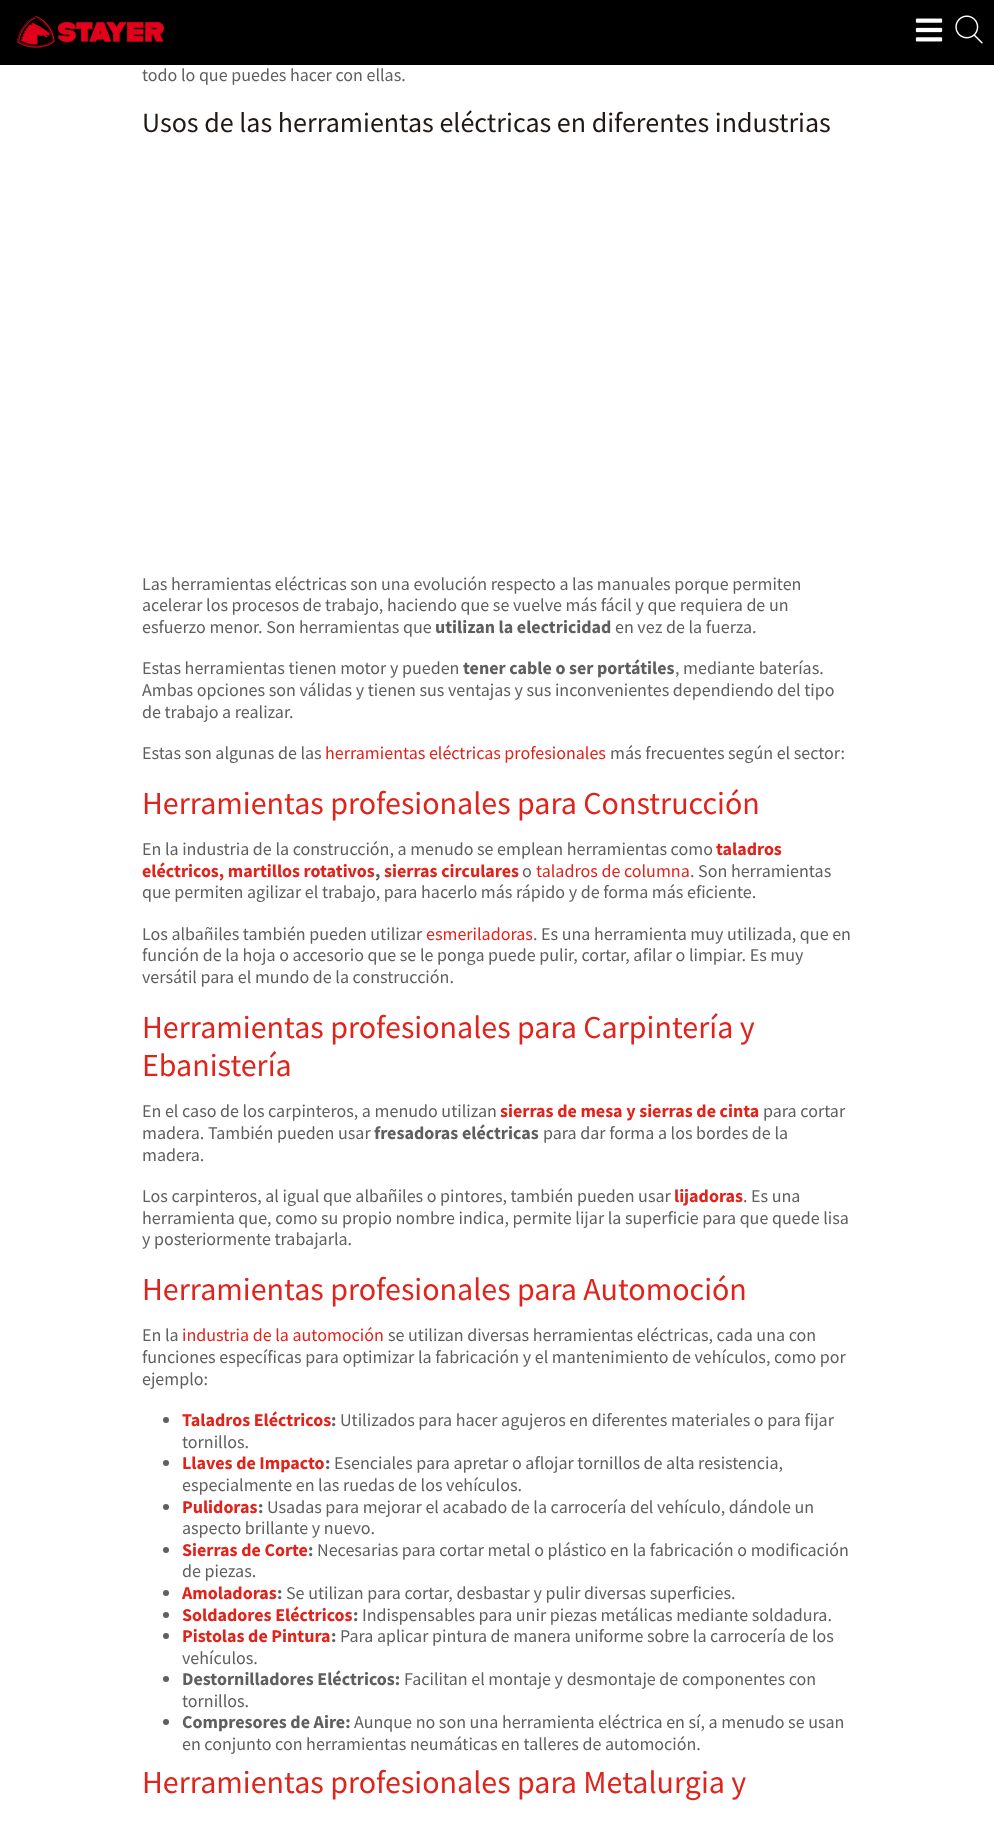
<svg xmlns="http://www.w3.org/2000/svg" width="994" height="1824">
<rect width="100%" height="100%" fill="#fff"/>
<rect width="994" height="65" fill="#000"/>
<image x="17" y="15" width="148" height="33" href="media/1.png"/>
<image x="915" y="18" width="28" height="24" href="media/2.png"/>
<image x="955" y="15" width="28" height="29" href="media/3.png"/>
<text x="142" y="81" style="font-family:Source Sans Pro;font-size:18px;fill:#5f5f5f">todo lo que puedes hacer con ellas.</text>
<text x="142" y="132" style="font-family:Source Sans Pro;font-size:28px;fill:#211915">Usos de las herramientas eléctricas en diferentes industrias</text>
<text x="142" y="590" style="font-family:Source Sans Pro;font-size:18px;fill:#5f5f5f">Las herramientas eléctricas son una evolución respecto a las manuales porque permiten</text>
<text x="142" y="611" style="font-family:Source Sans Pro;font-size:18px;fill:#5f5f5f">acelerar los procesos de trabajo, haciendo que se vuelve más fácil y que requiera de un</text>
<text x="142" y="633" style="font-family:Source Sans Pro;font-size:18px;fill:#5f5f5f">esfuerzo menor. Son herramientas que</text>
<text x="435" y="633" style="font-family:Source Sans Pro;font-size:18px;font-weight:bold;fill:#5f5f5f">utilizan la electricidad</text>
<text x="615" y="633" style="font-family:Source Sans Pro;font-size:18px;fill:#5f5f5f">en vez de la fuerza.</text>
<text x="142" y="674" style="font-family:Source Sans Pro;font-size:18px;fill:#5f5f5f">Estas herramientas tienen motor y pueden</text>
<text x="463" y="674" style="font-family:Source Sans Pro;font-size:18px;font-weight:bold;fill:#5f5f5f">tener cable o ser portátiles</text>
<text x="675" y="674" style="font-family:Source Sans Pro;font-size:18px;fill:#5f5f5f">, mediante baterías.</text>
<text x="142" y="696" style="font-family:Source Sans Pro;font-size:18px;fill:#5f5f5f">Ambas opciones son válidas y tienen sus ventajas y sus inconvenientes dependiendo del tipo</text>
<text x="142" y="718" style="font-family:Source Sans Pro;font-size:18px;fill:#5f5f5f">de trabajo a realizar.</text>
<text x="142" y="759" style="font-family:Source Sans Pro;font-size:18px;fill:#5f5f5f">Estas son algunas de las</text>
<text x="325" y="759" style="font-family:Source Sans Pro;font-size:18px;fill:#e0241c">herramientas eléctricas profesionales</text>
<text x="610" y="759" style="font-family:Source Sans Pro;font-size:18px;fill:#5f5f5f">más frecuentes según el sector:</text>
<text x="142" y="814" style="font-family:Source Sans Pro;font-size:32px;fill:#e0241c">Herramientas profesionales para Construcción</text>
<text x="142" y="855" style="font-family:Source Sans Pro;font-size:18px;fill:#5f5f5f">En la industria de la construcción, a menudo se emplean herramientas como</text>
<text x="716" y="855" style="font-family:Source Sans Pro;font-size:18px;font-weight:bold;fill:#e0241c">taladros</text>
<text x="142" y="877" style="font-family:Source Sans Pro;font-size:18px;font-weight:bold;fill:#e0241c">eléctricos, martillos rotativos</text>
<text x="375" y="877" style="font-family:Source Sans Pro;font-size:18px;font-weight:bold;fill:#5f5f5f">,</text>
<text x="384" y="877" style="font-family:Source Sans Pro;font-size:18px;font-weight:bold;fill:#e0241c">sierras circulares</text>
<text x="522" y="877" style="font-family:Source Sans Pro;font-size:18px;fill:#5f5f5f">o</text>
<text x="536" y="877" style="font-family:Source Sans Pro;font-size:18px;fill:#e0241c">taladros de columna</text>
<text x="690" y="877" style="font-family:Source Sans Pro;font-size:18px;fill:#5f5f5f">. Son herramientas</text>
<text x="142" y="898" style="font-family:Source Sans Pro;font-size:18px;fill:#5f5f5f">que permiten agilizar el trabajo, para hacerlo más rápido y de forma más eficiente.</text>
<text x="142" y="940" style="font-family:Source Sans Pro;font-size:18px;fill:#5f5f5f">Los albañiles también pueden utilizar</text>
<text x="426" y="940" style="font-family:Source Sans Pro;font-size:18px;fill:#e0241c">esmeriladoras</text>
<text x="533" y="940" style="font-family:Source Sans Pro;font-size:18px;fill:#5f5f5f">. Es una herramienta muy utilizada, que en</text>
<text x="142" y="961" style="font-family:Source Sans Pro;font-size:18px;fill:#5f5f5f">función de la hoja o accesorio que se le ponga puede pulir, cortar, afilar o limpiar. Es muy</text>
<text x="142" y="983" style="font-family:Source Sans Pro;font-size:18px;fill:#5f5f5f">versátil para el mundo de la construcción.</text>
<text x="142" y="1038" style="font-family:Source Sans Pro;font-size:32px;fill:#e0241c">Herramientas profesionales para Carpintería y</text>
<text x="142" y="1076" style="font-family:Source Sans Pro;font-size:32px;fill:#e0241c">Ebanistería</text>
<text x="142" y="1117" style="font-family:Source Sans Pro;font-size:18px;fill:#5f5f5f">En el caso de los carpinteros, a menudo utilizan</text>
<text x="500" y="1117" style="font-family:Source Sans Pro;font-size:18px;font-weight:bold;fill:#e0241c">sierras de mesa y sierras de cinta</text>
<text x="763" y="1117" style="font-family:Source Sans Pro;font-size:18px;fill:#5f5f5f">para cortar</text>
<text x="142" y="1139" style="font-family:Source Sans Pro;font-size:18px;fill:#5f5f5f">madera. También pueden usar</text>
<text x="374" y="1139" style="font-family:Source Sans Pro;font-size:18px;font-weight:bold;fill:#5f5f5f">fresadoras eléctricas</text>
<text x="543" y="1139" style="font-family:Source Sans Pro;font-size:18px;fill:#5f5f5f">para dar forma a los bordes de la</text>
<text x="142" y="1161" style="font-family:Source Sans Pro;font-size:18px;fill:#5f5f5f">madera.</text>
<text x="142" y="1202" style="font-family:Source Sans Pro;font-size:18px;fill:#5f5f5f">Los carpinteros, al igual que albañiles o pintores, también pueden usar</text>
<text x="674" y="1202" style="font-family:Source Sans Pro;font-size:18px;font-weight:bold;fill:#e0241c">lijadoras</text>
<text x="743" y="1202" style="font-family:Source Sans Pro;font-size:18px;fill:#5f5f5f">. Es una</text>
<text x="142" y="1224" style="font-family:Source Sans Pro;font-size:18px;fill:#5f5f5f">herramienta que, como su propio nombre indica, permite lijar la superficie para que quede lisa</text>
<text x="142" y="1245" style="font-family:Source Sans Pro;font-size:18px;fill:#5f5f5f">y posteriormente trabajarla.</text>
<text x="142" y="1300" style="font-family:Source Sans Pro;font-size:32px;fill:#e0241c">Herramientas profesionales para Automoción</text>
<text x="142" y="1341" style="font-family:Source Sans Pro;font-size:18px;fill:#5f5f5f">En la</text>
<text x="182" y="1341" style="font-family:Source Sans Pro;font-size:18px;fill:#e0241c">industria de la automoción</text>
<text x="388" y="1341" style="font-family:Source Sans Pro;font-size:18px;fill:#5f5f5f">se utilizan diversas herramientas eléctricas, cada una con</text>
<text x="142" y="1363" style="font-family:Source Sans Pro;font-size:18px;fill:#5f5f5f">funciones específicas para optimizar la fabricación y el mantenimiento de vehículos, como por</text>
<text x="142" y="1385" style="font-family:Source Sans Pro;font-size:18px;fill:#5f5f5f">ejemplo:</text>
<circle cx="166" cy="1420" r="3" fill="#5f5f5f"/>
<text x="182" y="1426" style="font-family:Source Sans Pro;font-size:18px;font-weight:bold;fill:#e0241c">Taladros Eléctricos</text>
<text x="331" y="1426" style="font-family:Source Sans Pro;font-size:18px;font-weight:bold;fill:#5f5f5f">:</text>
<text x="340" y="1426" style="font-family:Source Sans Pro;font-size:18px;fill:#5f5f5f">Utilizados para hacer agujeros en diferentes materiales o para fijar</text>
<text x="182" y="1448" style="font-family:Source Sans Pro;font-size:18px;fill:#5f5f5f">tornillos.</text>
<circle cx="166" cy="1463" r="3" fill="#5f5f5f"/>
<text x="182" y="1469" style="font-family:Source Sans Pro;font-size:18px;font-weight:bold;fill:#e0241c">Llaves de Impacto</text>
<text x="325" y="1469" style="font-family:Source Sans Pro;font-size:18px;font-weight:bold;fill:#5f5f5f">:</text>
<text x="334" y="1469" style="font-family:Source Sans Pro;font-size:18px;fill:#5f5f5f">Esenciales para apretar o aflojar tornillos de alta resistencia,</text>
<text x="182" y="1491" style="font-family:Source Sans Pro;font-size:18px;fill:#5f5f5f">especialmente en las ruedas de los vehículos.</text>
<circle cx="166" cy="1507" r="3" fill="#5f5f5f"/>
<text x="182" y="1513" style="font-family:Source Sans Pro;font-size:18px;font-weight:bold;fill:#e0241c">Pulidoras</text>
<text x="258" y="1513" style="font-family:Source Sans Pro;font-size:18px;font-weight:bold;fill:#5f5f5f">:</text>
<text x="267" y="1513" style="font-family:Source Sans Pro;font-size:18px;fill:#5f5f5f">Usadas para mejorar el acabado de la carrocería del vehículo, dándole un</text>
<text x="182" y="1534" style="font-family:Source Sans Pro;font-size:18px;fill:#5f5f5f">aspecto brillante y nuevo.</text>
<circle cx="166" cy="1550" r="3" fill="#5f5f5f"/>
<text x="182" y="1556" style="font-family:Source Sans Pro;font-size:18px;font-weight:bold;fill:#e0241c">Sierras de Corte</text>
<text x="308" y="1556" style="font-family:Source Sans Pro;font-size:18px;font-weight:bold;fill:#5f5f5f">:</text>
<text x="317" y="1556" style="font-family:Source Sans Pro;font-size:18px;fill:#5f5f5f">Necesarias para cortar metal o plástico en la fabricación o modificación</text>
<text x="182" y="1577" style="font-family:Source Sans Pro;font-size:18px;fill:#5f5f5f">de piezas.</text>
<circle cx="166" cy="1593" r="3" fill="#5f5f5f"/>
<text x="182" y="1599" style="font-family:Source Sans Pro;font-size:18px;font-weight:bold;fill:#e0241c">Amoladoras</text>
<text x="277" y="1599" style="font-family:Source Sans Pro;font-size:18px;font-weight:bold;fill:#5f5f5f">:</text>
<text x="286" y="1599" style="font-family:Source Sans Pro;font-size:18px;fill:#5f5f5f">Se utilizan para cortar, desbastar y pulir diversas superficies.</text>
<circle cx="166" cy="1615" r="3" fill="#5f5f5f"/>
<text x="182" y="1621" style="font-family:Source Sans Pro;font-size:18px;font-weight:bold;fill:#e0241c">Soldadores Eléctricos</text>
<text x="353" y="1621" style="font-family:Source Sans Pro;font-size:18px;font-weight:bold;fill:#5f5f5f">:</text>
<text x="362" y="1621" style="font-family:Source Sans Pro;font-size:18px;fill:#5f5f5f">Indispensables para unir piezas metálicas mediante soldadura.</text>
<circle cx="166" cy="1636" r="3" fill="#5f5f5f"/>
<text x="182" y="1642" style="font-family:Source Sans Pro;font-size:18px;font-weight:bold;fill:#e0241c">Pistolas de Pintura</text>
<text x="331" y="1642" style="font-family:Source Sans Pro;font-size:18px;font-weight:bold;fill:#5f5f5f">:</text>
<text x="340" y="1642" style="font-family:Source Sans Pro;font-size:18px;fill:#5f5f5f">Para aplicar pintura de manera uniforme sobre la carrocería de los</text>
<text x="182" y="1664" style="font-family:Source Sans Pro;font-size:18px;fill:#5f5f5f">vehículos.</text>
<circle cx="166" cy="1679" r="3" fill="#5f5f5f"/>
<text x="182" y="1685" style="font-family:Source Sans Pro;font-size:18px;font-weight:bold;fill:#5f5f5f">Destornilladores Eléctricos:</text>
<text x="404" y="1685" style="font-family:Source Sans Pro;font-size:18px;fill:#5f5f5f">Facilitan el montaje y desmontaje de componentes con</text>
<text x="182" y="1707" style="font-family:Source Sans Pro;font-size:18px;fill:#5f5f5f">tornillos.</text>
<circle cx="166" cy="1722" r="3" fill="#5f5f5f"/>
<text x="182" y="1728" style="font-family:Source Sans Pro;font-size:18px;font-weight:bold;fill:#5f5f5f">Compresores de Aire:</text>
<text x="354" y="1728" style="font-family:Source Sans Pro;font-size:18px;fill:#5f5f5f">Aunque no son una herramienta eléctrica en sí, a menudo se usan</text>
<text x="182" y="1750" style="font-family:Source Sans Pro;font-size:18px;fill:#5f5f5f">en conjunto con herramientas neumáticas en talleres de automoción.</text>
<text x="142" y="1793" style="font-family:Source Sans Pro;font-size:32px;fill:#e0241c">Herramientas profesionales para Metalurgia y</text>
</svg>
